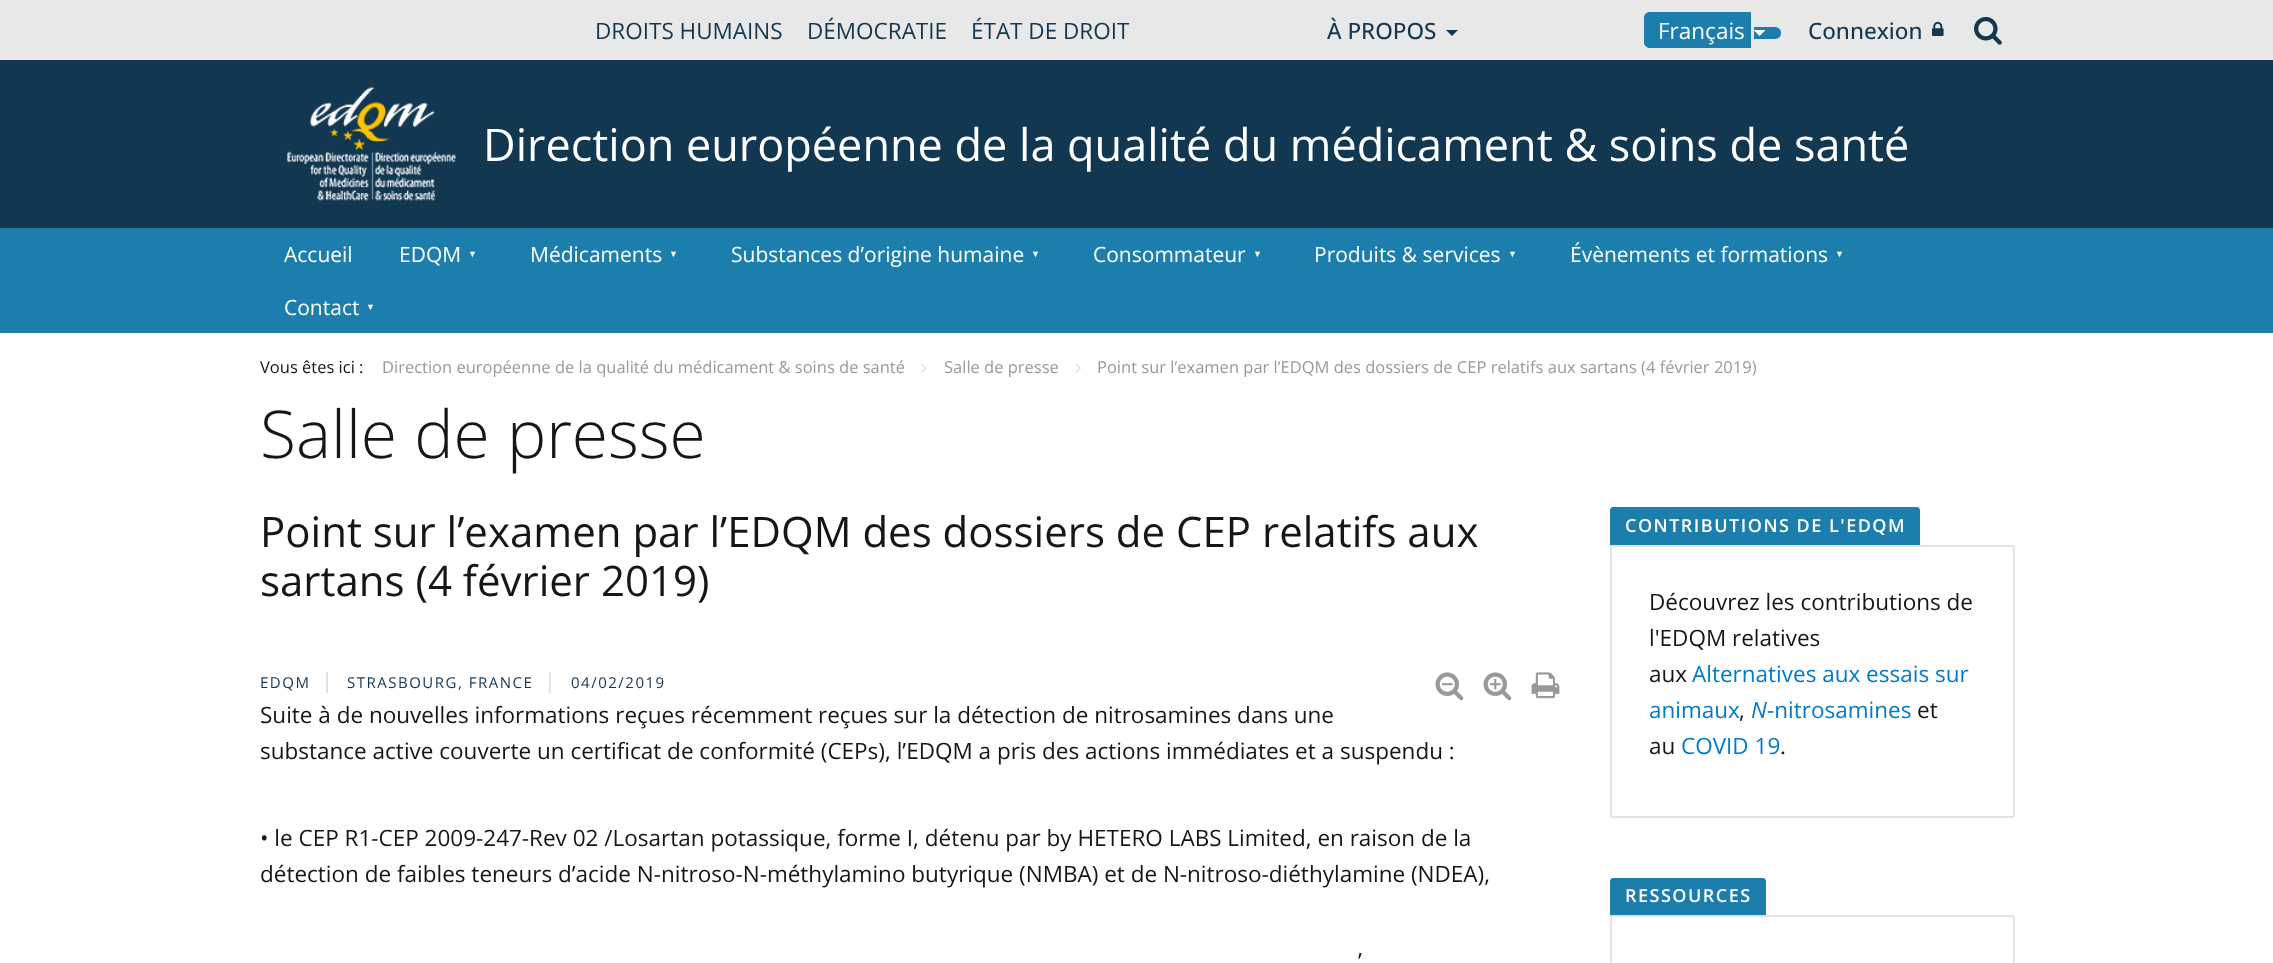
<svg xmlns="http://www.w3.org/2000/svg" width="2273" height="963">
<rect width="100%" height="100%" fill="#fff"/>
<rect width="2273" height="60" fill="#e8e8e8"/>
<text x="595" y="39" style="font-family:Open Sans;font-size:22.5px;fill:#123751">DROITS HUMAINS</text>
<text x="807" y="39" style="font-family:Open Sans;font-size:22.5px;fill:#123751">DÉMOCRATIE</text>
<text x="971" y="39" style="font-family:Open Sans;font-size:22.5px;fill:#123751">ÉTAT DE DROIT</text>
<text x="1327" y="39" style="font-family:Open Sans;font-size:22.5px;font-weight:500;fill:#123751">À PROPOS</text>
<path d="M1446 30h12l-6 6z" fill="#123751"/>
<path d="M1650 12h101v36h-101c-3.5 0-6-2.5-6-6v-24c0-3.5 2.5-6 6-6z" fill="#1b7eac"/>
<path d="M1754 27h21c3.5 0 6 2.5 6 6c0 3.5-2.5 6-6 6h-21z" fill="#1b7eac"/>
<text x="1658" y="39" style="font-family:Open Sans;font-size:22.5px;fill:#fff">Français</text>
<path d="M1753.5 30h12l-6 6z" fill="#fff"/>
<text x="1808" y="39" style="font-family:Open Sans;font-size:22.5px;font-weight:500;fill:#123751">Connexion</text>
<image x="1932" y="21" width="12" height="15" href="media/1.png"/>
<image x="1974" y="16" width="28" height="29" href="media/2.png"/>
<rect y="60" width="2273" height="168" fill="#123751"/>
<image x="287" y="87" width="169" height="114" href="media/3.png"/>
<text x="483" y="161" style="font-family:Open Sans;font-size:45px;fill:#fff">Direction européenne de la qualité du médicament &amp; soins de santé</text>
<rect y="228" width="2273" height="105" fill="#1b7eac"/>
<text x="284" y="262" style="font-family:Open Sans;font-size:21px;fill:#fff">Accueil</text>
<text x="399" y="262" style="font-family:Open Sans;font-size:21px;fill:#fff">EDQM</text>
<text x="468" y="257" style="font-family:Liberation Sans;font-size:9px;letter-spacing:6px;fill:#fff">▼</text>
<text x="530" y="262" style="font-family:Open Sans;font-size:21px;fill:#fff">Médicaments</text>
<text x="669" y="257" style="font-family:Liberation Sans;font-size:9px;letter-spacing:6px;fill:#fff">▼</text>
<text x="731" y="262" style="font-family:Open Sans;font-size:21px;fill:#fff">Substances d’origine humaine</text>
<text x="1031" y="257" style="font-family:Liberation Sans;font-size:9px;letter-spacing:6px;fill:#fff">▼</text>
<text x="1093" y="262" style="font-family:Open Sans;font-size:21px;fill:#fff">Consommateur</text>
<text x="1253" y="257" style="font-family:Liberation Sans;font-size:9px;letter-spacing:6px;fill:#fff">▼</text>
<text x="1314" y="262" style="font-family:Open Sans;font-size:21px;fill:#fff">Produits &amp; services</text>
<text x="1508" y="257" style="font-family:Liberation Sans;font-size:9px;letter-spacing:6px;fill:#fff">▼</text>
<text x="1570" y="262" style="font-family:Open Sans;font-size:21px;fill:#fff">Évènements et formations</text>
<text x="1835" y="257" style="font-family:Liberation Sans;font-size:9px;letter-spacing:6px;fill:#fff">▼</text>
<text x="284" y="315" style="font-family:Open Sans;font-size:21px;fill:#fff">Contact</text>
<text x="366" y="310" style="font-family:Liberation Sans;font-size:9px;letter-spacing:6px;fill:#fff">▼</text>
<text x="260" y="373" style="font-family:Open Sans;font-size:16.5px;fill:#161616">Vous êtes ici :</text>
<text x="382" y="373" style="font-family:Open Sans;font-size:16.5px;fill:#999">Direction européenne de la qualité du médicament &amp; soins de santé</text>
<image x="921" y="363" width="6" height="10" href="media/4.png"/>
<text x="944" y="373" style="font-family:Open Sans;font-size:16.5px;fill:#999">Salle de presse</text>
<image x="1075" y="363" width="6" height="10" href="media/5.png"/>
<text x="1097" y="373" style="font-family:Open Sans;font-size:16.5px;fill:#999">Point sur l’examen par l’EDQM des dossiers de CEP relatifs aux sartans (4 février 2019)</text>
<text x="260" y="458" style="font-family:Open Sans;font-size:66px;font-weight:300;fill:#161616">Salle de presse</text>
<text x="260" y="547" style="font-family:Open Sans;font-size:42px;fill:#161616">Point sur l’examen par l’EDQM des dossiers de CEP relatifs aux</text>
<text x="260" y="596" style="font-family:Open Sans;font-size:42px;fill:#161616">sartans (4 février 2019)</text>
<text x="260" y="688" style="font-family:Open Sans;font-size:15px;letter-spacing:1.5px;fill:#123751">EDQM</text>
<rect x="326" y="672" width="2" height="21" fill="#e2e3e2"/>
<text x="347" y="688" style="font-family:Open Sans;font-size:15px;letter-spacing:1.5px;fill:#123751">STRASBOURG, FRANCE</text>
<rect x="549" y="672" width="2" height="21" fill="#e2e3e2"/>
<text x="571" y="688" style="font-family:Open Sans;font-size:15px;letter-spacing:1.5px;fill:#123751">04/02/2019</text>
<image x="1435" y="672" width="29" height="29" href="media/6.png"/>
<image x="1483" y="672" width="29" height="29" href="media/7.png"/>
<image x="1531" y="672" width="29" height="27" href="media/8.png"/>
<text x="260" y="723" style="font-family:Open Sans;font-size:22.5px;fill:#161616">Suite à de nouvelles informations reçues récemment reçues sur la détection de nitrosamines dans une</text>
<text x="260" y="759" style="font-family:Open Sans;font-size:22.5px;fill:#161616">substance active couverte un certificat de conformité (CEPs), l’EDQM a pris des actions immédiates et a suspendu :</text>
<text x="260" y="846" style="font-family:Open Sans;font-size:22.5px;fill:#161616">• le CEP R1-CEP 2009-247-Rev 02 /Losartan potassique, forme I, détenu par by HETERO LABS Limited, en raison de la</text>
<text x="260" y="882" style="font-family:Open Sans;font-size:22.5px;fill:#161616">détection de faibles teneurs d’acide N-nitroso-N-méthylamino butyrique (NMBA) et de N-nitroso-diéthylamine (NDEA),</text>
<text x="1358" y="969" style="font-family:Open Sans;font-size:22.5px;fill:#161616">’</text>
<path d="M1613 507h304c1.5 0 3 1.5 3 3v35h-310v-35c0-1.5 1.5-3 3-3z" fill="#1b7eac"/>
<text x="1625" y="532" style="font-family:Open Sans;font-size:18px;font-weight:600;letter-spacing:1.5px;fill:#fff">CONTRIBUTIONS DE L'EDQM</text>
<path d="M1611 546h401c1 0 2 1 2 2v267c0 1-1 2-2 2h-399c-1 0-2-1-2-2z" fill="none" stroke="#e3e3e3" stroke-width="2"/>
<text x="1649" y="610" style="font-family:Open Sans;font-size:22.5px;fill:#161616">Découvrez les contributions de</text>
<text x="1649" y="646" style="font-family:Open Sans;font-size:22.5px;fill:#161616">l'EDQM relatives</text>
<text x="1649" y="682" style="font-family:Open Sans;font-size:22.5px;fill:#161616">aux</text>
<text x="1692" y="682" style="font-family:Open Sans;font-size:22.5px;fill:#007bc8">Alternatives aux essais sur</text>
<text x="1649" y="718" style="font-family:Open Sans;font-size:22.5px;fill:#007bc8">animaux</text>
<text x="1739" y="718" style="font-family:Open Sans;font-size:22.5px;fill:#161616">,</text>
<text x="1751" y="718" style="font-family:Open Sans;font-size:22.5px;font-style:italic;fill:#007bc8">N</text>
<text x="1767" y="718" style="font-family:Open Sans;font-size:22.5px;fill:#007bc8">-nitrosamines</text>
<text x="1917" y="718" style="font-family:Open Sans;font-size:22.5px;fill:#161616">et</text>
<text x="1649" y="754" style="font-family:Open Sans;font-size:22.5px;fill:#161616">au</text>
<text x="1681" y="754" style="font-family:Open Sans;font-size:22.5px;fill:#007bc8">COVID 19</text>
<text x="1780" y="754" style="font-family:Open Sans;font-size:22.5px;fill:#161616">.</text>
<path d="M1613 878h150c1.5 0 3 1.5 3 3v34h-156v-34c0-1.5 1.5-3 3-3z" fill="#1b7eac"/>
<text x="1625" y="902" style="font-family:Open Sans;font-size:18px;font-weight:600;letter-spacing:1.5px;fill:#fff">RESSOURCES</text>
<path d="M1611 916h401c1 0 2 1 2 2v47c0 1-1 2-2 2h-399c-1 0-2-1-2-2z" fill="none" stroke="#e3e3e3" stroke-width="2"/>
</svg>
